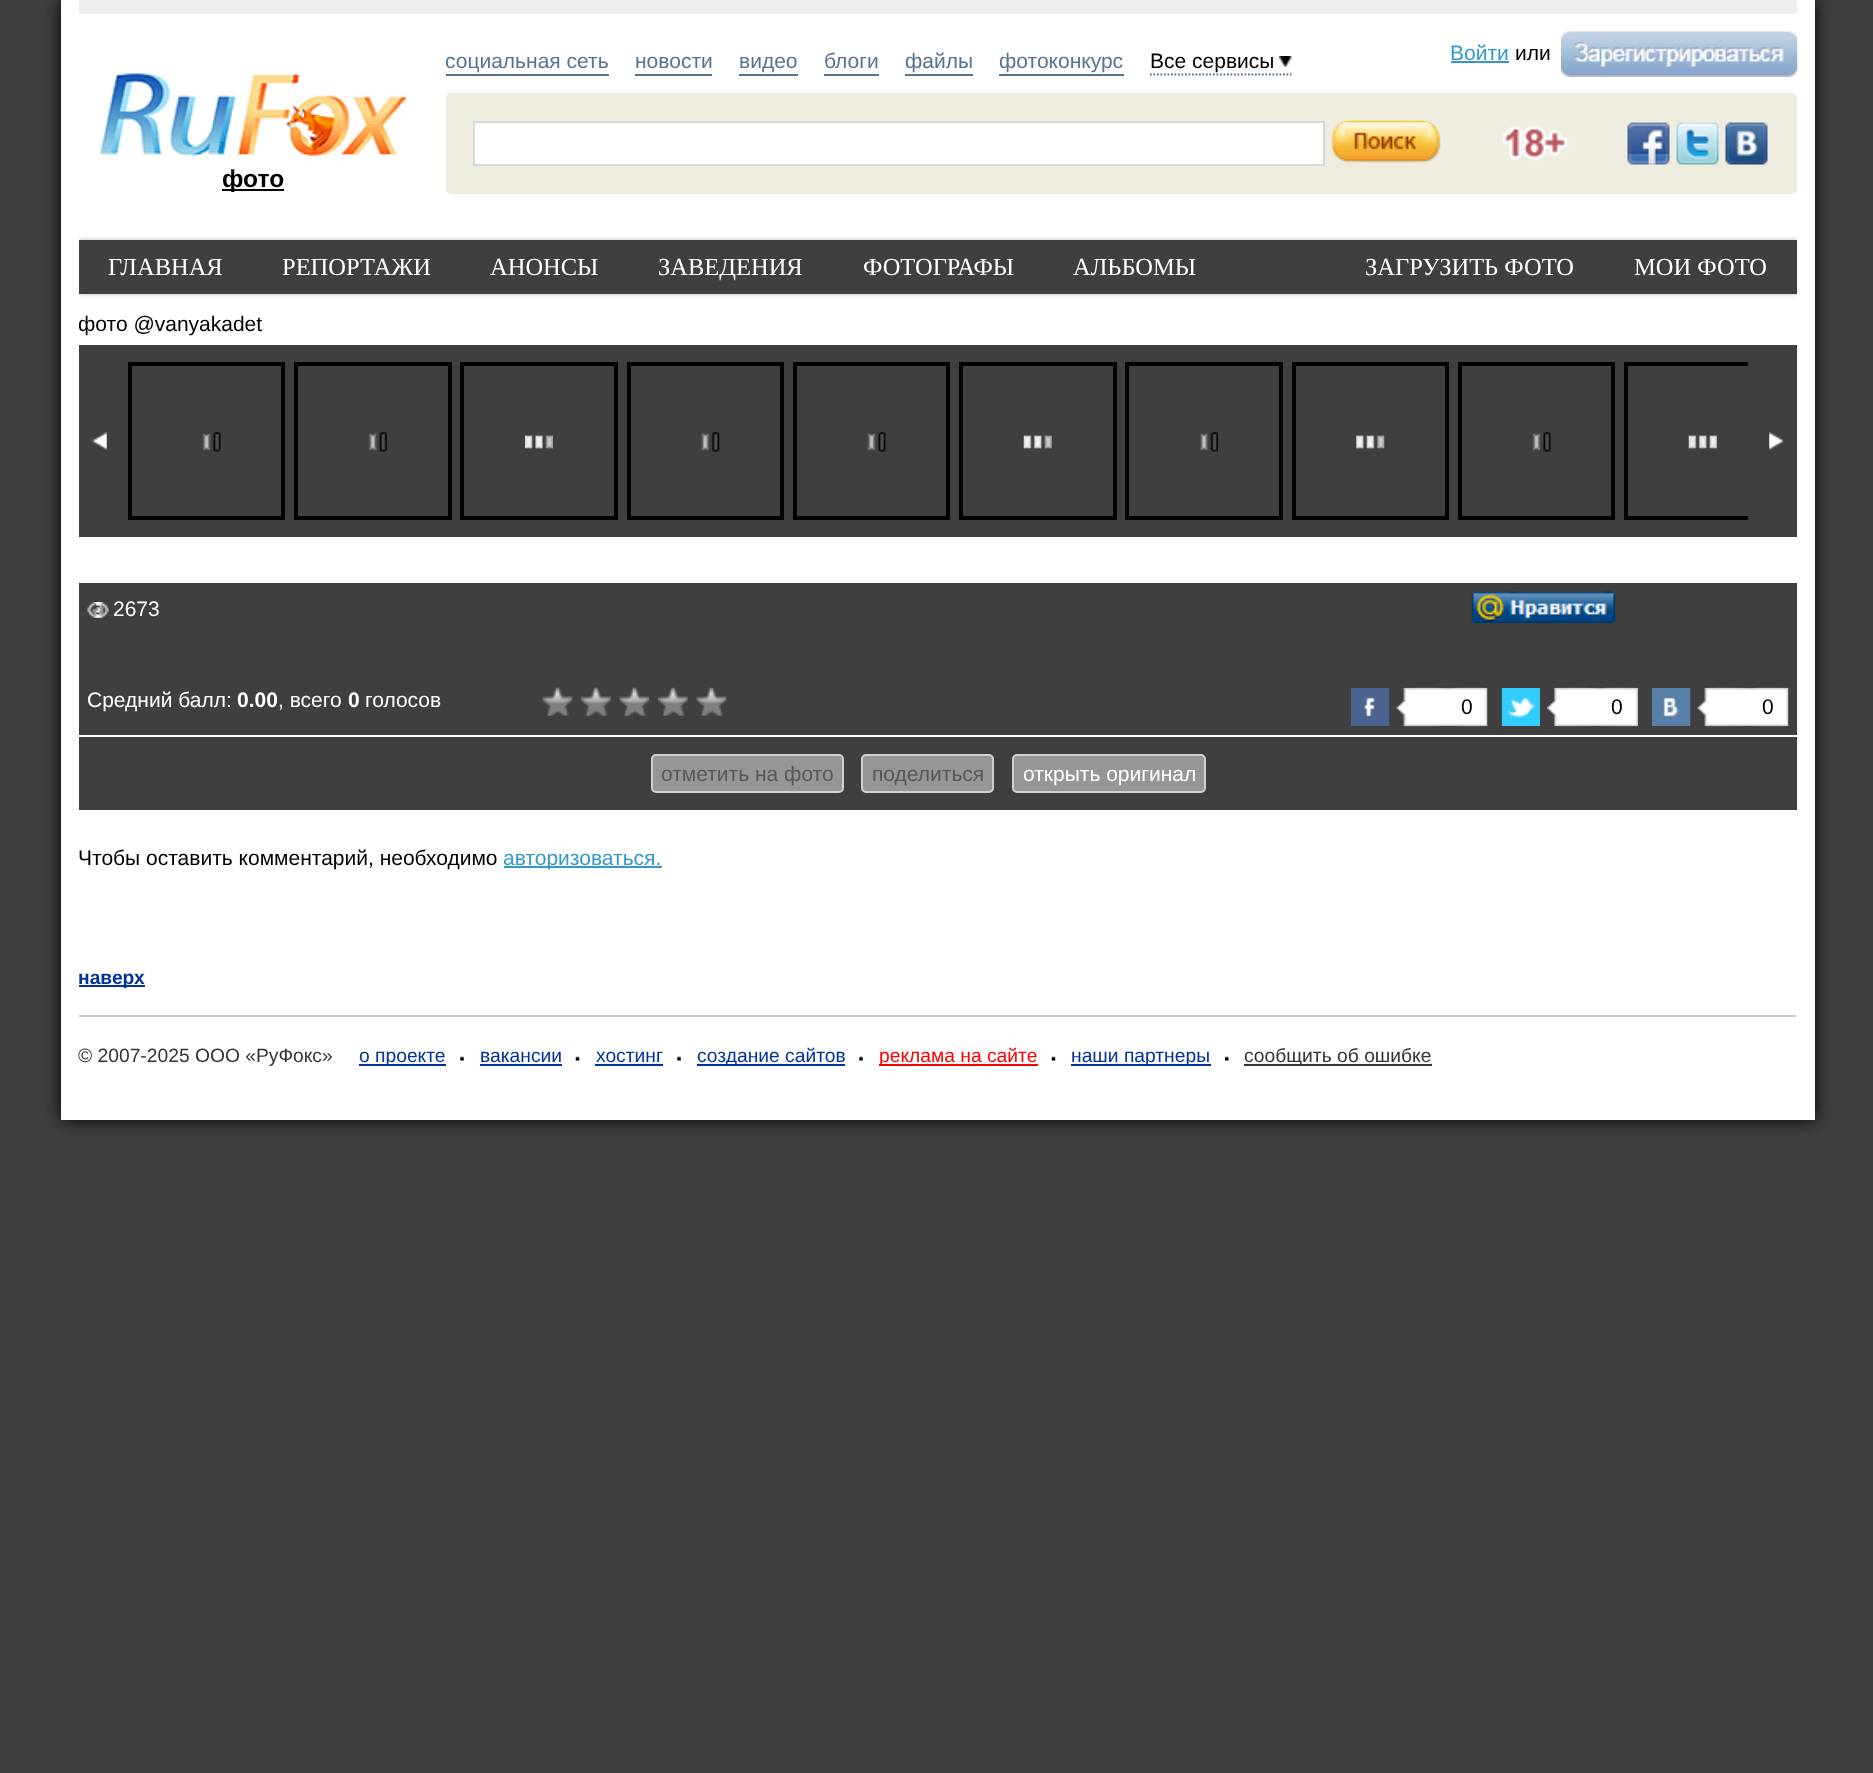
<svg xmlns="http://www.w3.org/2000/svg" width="1873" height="1773">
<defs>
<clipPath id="clip1"><rect x="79" y="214" width="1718" height="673"/></clipPath>
<clipPath id="clip2"><rect x="79" y="312" width="1718" height="33"/></clipPath>
<clipPath id="clip3"><rect x="128" y="362" width="1620" height="158"/></clipPath>
</defs>
<rect width="100%" height="100%" fill="#3f3f3f"/>
<rect x="61" width="1754" height="1120" fill="#000" filter="blur(9px)"/>
<rect x="61" width="1754" height="1120" fill="#fff"/>
<rect x="79" width="1718" height="14" fill="#efefef"/>
<rect x="446" y="74" width="163" height="2" fill="#557490"/>
<text x="445" y="68" style="font-family:Liberation Sans;font-size:21px;fill:#557490">социальная сеть</text>
<rect x="635" y="74" width="77" height="2" fill="#557490"/>
<text x="635" y="68" style="font-family:Liberation Sans;font-size:21px;fill:#557490">новости</text>
<rect x="739" y="74" width="59" height="2" fill="#557490"/>
<text x="739" y="68" style="font-family:Liberation Sans;font-size:21px;fill:#557490">видео</text>
<rect x="824" y="74" width="55" height="2" fill="#557490"/>
<text x="824" y="68" style="font-family:Liberation Sans;font-size:21px;fill:#557490">блоги</text>
<rect x="905" y="74" width="68" height="2" fill="#557490"/>
<text x="905" y="68" style="font-family:Liberation Sans;font-size:21px;fill:#557490">файлы</text>
<rect x="999" y="74" width="125" height="2" fill="#557490"/>
<text x="999" y="68" style="font-family:Liberation Sans;font-size:21px;fill:#557490">фотоконкурс</text>
<image x="1279" y="56" width="13" height="11" href="media/1.png"/>
<path d="M1150 74.5h141.5" fill="none" stroke="#557490" stroke-width="1.8" stroke-dasharray="1.75 1.75"/>
<text x="1150" y="68" style="font-family:Liberation Sans;font-size:21px;fill:#000">Все сервисы</text>
<text x="1450" y="60" style="font-family:Liberation Sans;font-size:21px;fill:#39c">Войти</text>
<rect x="1451" y="61" width="58" height="2" fill="#39c"/>
<text x="1515" y="60" style="font-family:Liberation Sans;font-size:21px;fill:#000">или</text>
<image x="1561" y="31" width="237" height="46" href="media/2.png"/>
<image x="99" y="73" width="308" height="83" href="media/3.png"/>
<rect x="222" y="189" width="62" height="2" fill="#000"/>
<text x="222" y="187" style="font-family:Liberation Sans;font-size:24.5px;font-weight:bold;fill:#000">фото</text>
<rect x="446" y="93" width="1351" height="101" rx="5" fill="#efeddf"/>
<rect x="474" y="122" width="850" height="43" fill="#fff" stroke="#d4d7dc" stroke-width="2"/>
<image x="1331" y="120" width="110" height="43" href="media/4.png"/>
<image x="1501" y="125" width="68" height="36" href="media/5.png"/>
<image x="1627" y="122" width="43" height="43" href="media/6.png"/>
<image x="1676" y="122" width="43" height="43" href="media/7.png"/>
<image x="1725" y="122" width="43" height="43" href="media/8.png"/>
<g clip-path="url(#clip1)">
<rect x="79" y="240" width="1718" height="54" fill="#bbb" filter="blur(2.5px)"/>
</g>
<rect x="79" y="240" width="1718" height="54" fill="#3f3f3f"/>
<text x="108" y="275" style="font-family:Liberation Serif;font-size:24.5px;fill:#fff">ГЛАВНАЯ</text>
<text x="282" y="275" style="font-family:Liberation Serif;font-size:24.5px;fill:#fff">РЕПОРТАЖИ</text>
<text x="490" y="275" style="font-family:Liberation Serif;font-size:24.5px;fill:#fff">АНОНСЫ</text>
<text x="658" y="275" style="font-family:Liberation Serif;font-size:24.5px;fill:#fff">ЗАВЕДЕНИЯ</text>
<text x="863" y="275" style="font-family:Liberation Serif;font-size:24.5px;fill:#fff">ФОТОГРАФЫ</text>
<text x="1073" y="275" style="font-family:Liberation Serif;font-size:24.5px;fill:#fff">АЛЬБОМЫ</text>
<text x="1365" y="275" style="font-family:Liberation Serif;font-size:24.5px;fill:#fff">ЗАГРУЗИТЬ ФОТО</text>
<text x="1634" y="275" style="font-family:Liberation Serif;font-size:24.5px;fill:#fff">МОИ ФОТО</text>
<g clip-path="url(#clip2)">
<text x="78" y="331" style="font-family:Liberation Sans;font-size:21px;fill:#000">фото @vanyakadet</text>
</g>
<rect x="79" y="345" width="1718" height="192" fill="#3f3f3f"/>
<image x="92" y="432" width="15" height="18" href="media/9.png"/>
<image x="202" y="432" width="19" height="20" href="media/10.png"/>
<rect x="130" y="364" width="153" height="154" fill="none" stroke="#000" stroke-width="4"/>
<image x="368" y="432" width="19" height="20" href="media/11.png"/>
<rect x="296" y="364" width="154" height="154" fill="none" stroke="#000" stroke-width="4"/>
<image x="525" y="435" width="28" height="14" href="media/12.png"/>
<rect x="462" y="364" width="154" height="154" fill="none" stroke="#000" stroke-width="4"/>
<image x="701" y="432" width="19" height="20" href="media/13.png"/>
<rect x="629" y="364" width="153" height="154" fill="none" stroke="#000" stroke-width="4"/>
<image x="867" y="432" width="19" height="20" href="media/14.png"/>
<rect x="795" y="364" width="153" height="154" fill="none" stroke="#000" stroke-width="4"/>
<image x="1023" y="435" width="29" height="14" href="media/15.png"/>
<rect x="961" y="364" width="154" height="154" fill="none" stroke="#000" stroke-width="4"/>
<image x="1200" y="432" width="18" height="20" href="media/16.png"/>
<rect x="1127" y="364" width="154" height="154" fill="none" stroke="#000" stroke-width="4"/>
<image x="1356" y="435" width="29" height="14" href="media/17.png"/>
<rect x="1294" y="364" width="153" height="154" fill="none" stroke="#000" stroke-width="4"/>
<image x="1532" y="432" width="19" height="20" href="media/14.png"/>
<rect x="1460" y="364" width="153" height="154" fill="none" stroke="#000" stroke-width="4"/>
<image x="1688" y="435" width="29" height="14" href="media/18.png"/>
<image x="1769" y="432" width="15" height="18" href="media/19.png"/>
<g clip-path="url(#clip3)">
<rect x="1626" y="364" width="154" height="154" fill="none" stroke="#000" stroke-width="4"/>
</g>
<rect x="79" y="583" width="1718" height="87" fill="#3f3f3f"/>
<image x="87" y="602" width="22" height="16" href="media/20.png"/>
<text x="113" y="616" style="font-family:Liberation Sans;font-size:21px;fill:#fff">2673</text>
<image x="1471" y="591" width="145" height="32" href="media/21.png"/>
<rect x="79" y="670" width="1718" height="65" fill="#3f3f3f"/>
<text x="87" y="707" style="font-family:Liberation Sans;font-size:21px;fill:#fff">Средний балл:</text>
<text x="237" y="707" style="font-family:Liberation Sans;font-size:21px;font-weight:bold;fill:#fff">0.00</text>
<text x="278" y="707" style="font-family:Liberation Sans;font-size:21px;fill:#fff">, всего</text>
<text x="348" y="707" style="font-family:Liberation Sans;font-size:21px;font-weight:bold;fill:#fff">0</text>
<text x="365" y="707" style="font-family:Liberation Sans;font-size:21px;fill:#fff">голосов</text>
<image x="542" y="687" width="31" height="29" href="media/22.png"/>
<image x="581" y="687" width="30" height="29" href="media/23.png"/>
<image x="619" y="687" width="31" height="29" href="media/22.png"/>
<image x="658" y="687" width="30" height="29" href="media/23.png"/>
<image x="696" y="687" width="31" height="29" href="media/22.png"/>
<image x="1351" y="688" width="39" height="38" href="media/24.png"/>
<image x="1396" y="687" width="41" height="40" href="media/25.png"/>
<image x="1456" y="687" width="32" height="40" href="media/26.png"/>
<image x="1407" y="687" width="76" height="40" href="media/27.png"/>
<text x="1461" y="714" style="font-family:Liberation Sans;font-size:21px;fill:#000">0</text>
<image x="1501" y="688" width="39" height="38" href="media/28.png"/>
<image x="1547" y="687" width="40" height="40" href="media/29.png"/>
<image x="1606" y="687" width="32" height="40" href="media/30.png"/>
<image x="1557" y="687" width="76" height="40" href="media/31.png"/>
<text x="1611" y="714" style="font-family:Liberation Sans;font-size:21px;fill:#000">0</text>
<image x="1652" y="688" width="39" height="38" href="media/32.png"/>
<image x="1697" y="687" width="41" height="40" href="media/25.png"/>
<image x="1757" y="687" width="32" height="40" href="media/26.png"/>
<image x="1708" y="687" width="76" height="40" href="media/27.png"/>
<text x="1762" y="714" style="font-family:Liberation Sans;font-size:21px;fill:#000">0</text>
<rect x="79" y="737" width="1718" height="73" fill="#3f3f3f"/>
<rect x="652" y="755" width="191" height="37" rx="4" fill="#969696" stroke="#d0d0d0" stroke-width="2"/>
<text x="661" y="781" style="font-family:Liberation Sans;font-size:21px;fill:#585858">отметить на фото</text>
<rect x="862" y="755" width="131" height="37" rx="4" fill="#969696" stroke="#d0d0d0" stroke-width="2"/>
<text x="872" y="781" style="font-family:Liberation Sans;font-size:21px;fill:#585858">поделиться</text>
<rect x="1013" y="755" width="192" height="37" rx="4" fill="#969696" stroke="#d0d0d0" stroke-width="2"/>
<text x="1023" y="781" style="font-family:Liberation Sans;font-size:21px;fill:#fff">открыть оригинал</text>
<text x="78" y="865" style="font-family:Liberation Sans;font-size:21px;fill:#000">Чтобы оставить комментарий, необходимо</text>
<rect x="504" y="866" width="158" height="2" fill="#39c"/>
<text x="503" y="865" style="font-family:Liberation Sans;font-size:21px;fill:#39c">авторизоваться.</text>
<rect x="79" y="985" width="66" height="2" fill="#039"/>
<text x="78" y="984" style="font-family:Liberation Sans;font-size:19.25px;font-weight:bold;fill:#039">наверх</text>
<rect x="79" y="1015" width="1717" height="2" fill="#ccc"/>
<text x="78" y="1062" style="font-family:Liberation Sans;font-size:19.25px;fill:#333">© 2007-2025 ООО «РуФокс»</text>
<rect x="359" y="1064" width="87" height="2" fill="#039"/>
<text x="359" y="1062" style="font-family:Liberation Sans;font-size:19.25px;fill:#039">о проекте</text>
<image x="460" y="1056" width="4" height="5" href="media/33.png"/>
<text x="480" y="1062" style="font-family:Liberation Sans;font-size:19.25px;fill:#039">вакансии</text>
<rect x="480" y="1064" width="82" height="2" fill="#039"/>
<image x="575" y="1056" width="5" height="5" href="media/34.png"/>
<text x="596" y="1062" style="font-family:Liberation Sans;font-size:19.25px;fill:#039">хостинг</text>
<rect x="595" y="1064" width="68" height="2" fill="#039"/>
<image x="677" y="1056" width="4" height="5" href="media/33.png"/>
<rect x="697" y="1064" width="148" height="2" fill="#039"/>
<text x="697" y="1062" style="font-family:Liberation Sans;font-size:19.25px;fill:#039">создание сайтов</text>
<image x="859" y="1056" width="4" height="5" href="media/33.png"/>
<rect x="879" y="1064" width="159" height="2" fill="#f00"/>
<text x="879" y="1062" style="font-family:Liberation Sans;font-size:19.25px;fill:#f00">реклама на сайте</text>
<image x="1051" y="1056" width="5" height="5" href="media/34.png"/>
<rect x="1071" y="1064" width="140" height="2" fill="#039"/>
<text x="1071" y="1062" style="font-family:Liberation Sans;font-size:19.25px;fill:#039">наши партнеры</text>
<image x="1225" y="1056" width="4" height="5" href="media/35.png"/>
<rect x="1244" y="1064" width="188" height="2" fill="#333"/>
<text x="1244" y="1062" style="font-family:Liberation Sans;font-size:19.25px;fill:#333">сообщить об ошибке</text>
</svg>
